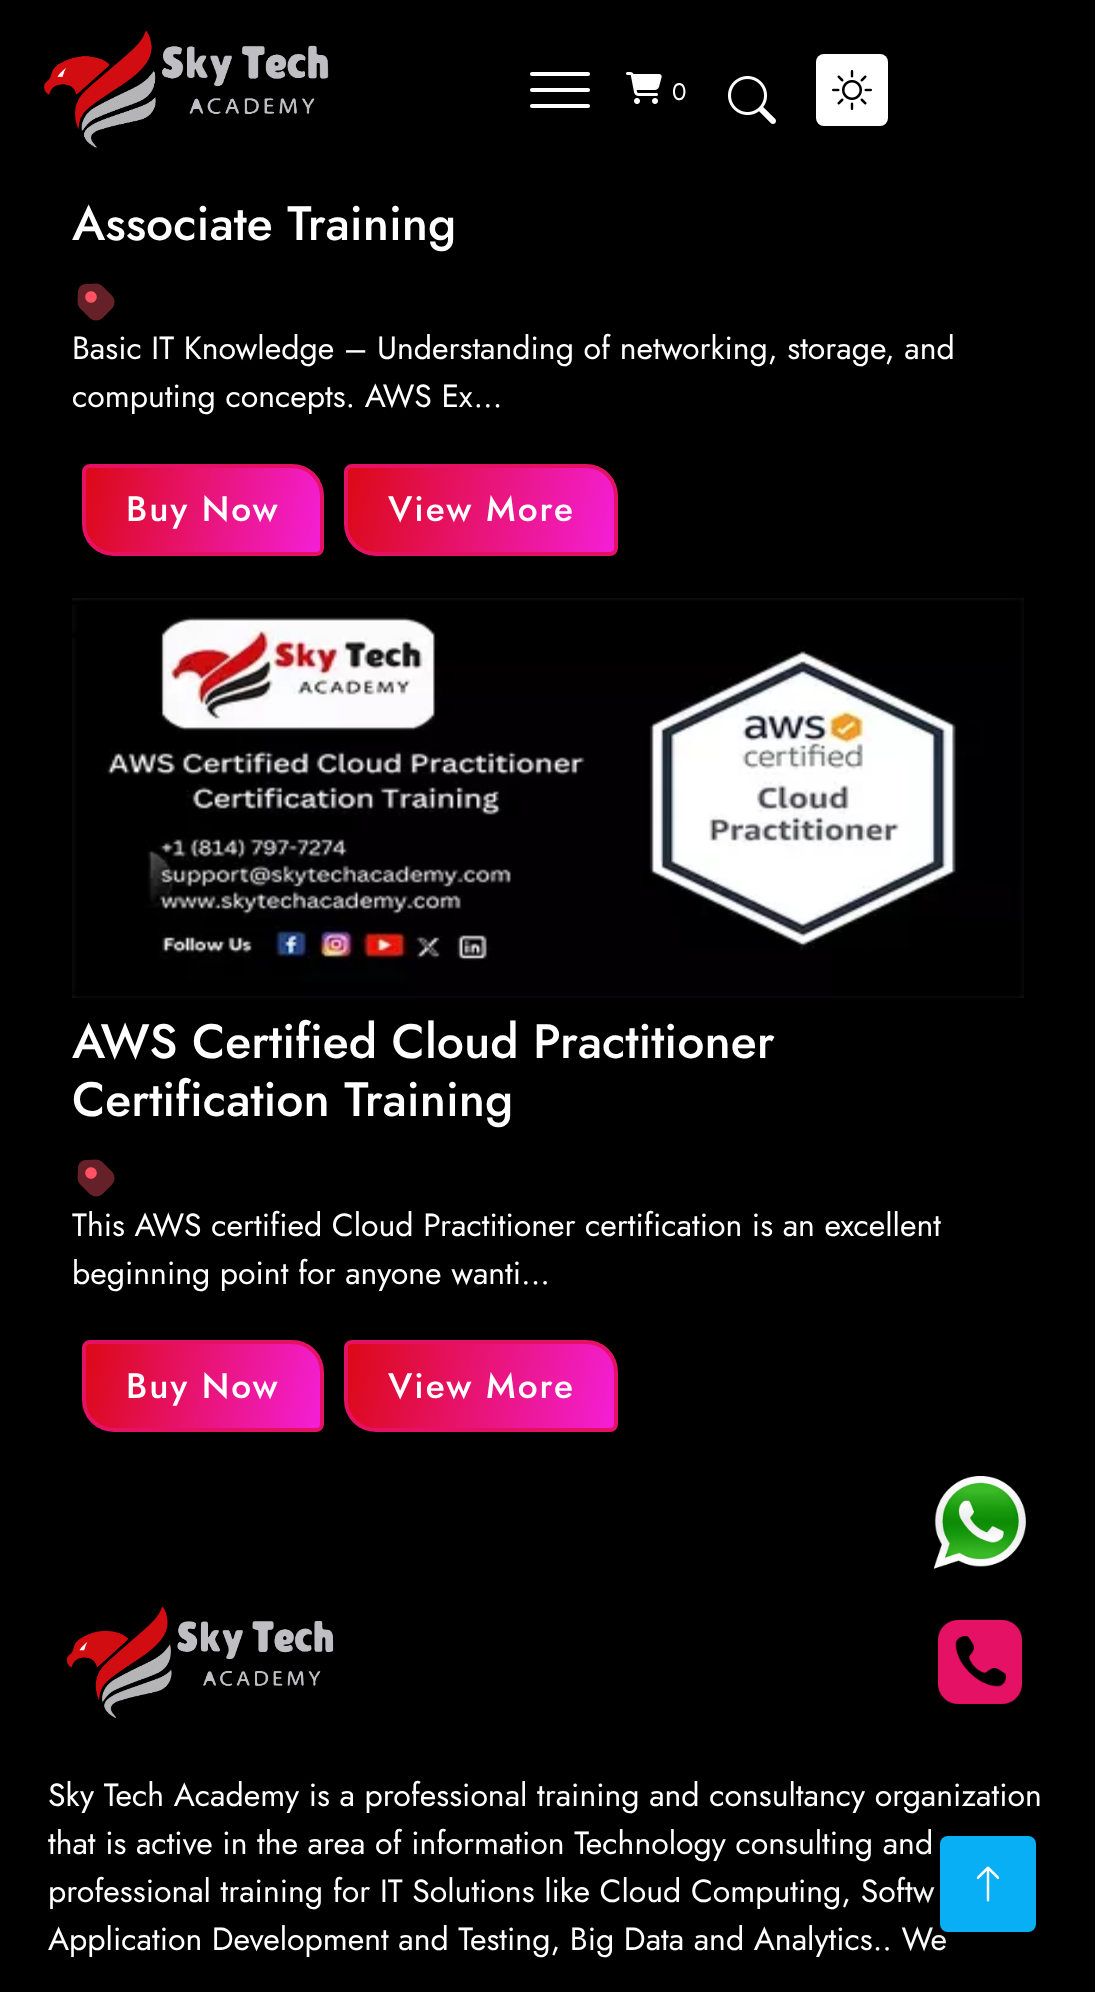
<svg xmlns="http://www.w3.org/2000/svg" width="1095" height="1992">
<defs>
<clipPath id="clip1"><path d="M90 464h202c17.5 0 32 14.5 32 32v52c0 4.5-3.5 8-8 8h-202c-17.5 0-32-14.5-32-32v-52c0-4.5 3.5-8 8-8z"/></clipPath>
<linearGradient id="g1" gradientUnits="userSpaceOnUse" x1="83" y1="483" x2="323" y2="537"><stop offset="0" stop-color="#dc0916"/><stop offset="1" stop-color="#f41fd6"/></linearGradient>
<clipPath id="clip2"><path d="M352 464h234c17.5 0 32 14.5 32 32v52c0 4.5-3.5 8-8 8h-234c-17.5 0-32-14.5-32-32v-52c0-4.5 3.5-8 8-8z"/></clipPath>
<linearGradient id="g2" gradientUnits="userSpaceOnUse" x1="345" y1="480" x2="617" y2="540"><stop offset="0" stop-color="#dc0916"/><stop offset="1" stop-color="#f41fd6"/></linearGradient>
<clipPath id="clip3"><path d="M90 1340h202c17.5 0 32 14.5 32 32v52c0 4.5-3.5 8-8 8h-202c-17.5 0-32-14.5-32-32v-52c0-4.5 3.5-8 8-8z"/></clipPath>
<linearGradient id="g3" gradientUnits="userSpaceOnUse" x1="83" y1="1359" x2="323" y2="1413"><stop offset="0" stop-color="#dc0916"/><stop offset="1" stop-color="#f41fd6"/></linearGradient>
<clipPath id="clip4"><path d="M352 1340h234c17.5 0 32 14.5 32 32v52c0 4.5-3.5 8-8 8h-234c-17.5 0-32-14.5-32-32v-52c0-4.5 3.5-8 8-8z"/></clipPath>
<linearGradient id="g4" gradientUnits="userSpaceOnUse" x1="345" y1="1356" x2="617" y2="1416"><stop offset="0" stop-color="#dc0916"/><stop offset="1" stop-color="#f41fd6"/></linearGradient>
</defs>
<rect width="100%" height="100%" fill="#000"/>
<image x="44" y="31" width="285" height="117" href="media/1.png"/>
<rect x="530" y="72" width="60" height="4" rx="2" fill="#fff"/>
<rect x="530" y="88" width="60" height="4" rx="2" fill="#fff"/>
<rect x="530" y="104" width="60" height="4" rx="2" fill="#fff"/>
<image x="626" y="72" width="36" height="32" href="media/2.png"/>
<text x="672" y="100" style="font-family:Jost;font-size:24px;fill:#fff">0</text>
<image x="727" y="76" width="49" height="48" href="media/3.png"/>
<rect x="816" y="54" width="72" height="72" rx="8" fill="#fff"/>
<image x="832" y="70" width="40" height="40" href="media/4.png"/>
<text x="72" y="240" style="font-family:Jost;font-size:48.2px;font-weight:500;fill:#fff">Associate Training</text>
<image x="77" y="283" width="38" height="38" href="media/5.png"/>
<text x="72" y="359" style="font-family:Jost;font-size:32px;fill:#fff">Basic IT Knowledge – Understanding of networking, storage, and</text>
<text x="72" y="407" style="font-family:Jost;font-size:32px;fill:#fff">computing concepts. AWS Ex...</text>
<g clip-path="url(#clip1)">
<rect x="86" y="468" width="234" height="84" fill="url(#g1)"/>
</g>
<path d="M90 466h202c16.5 0 30 13.5 30 30v52c0 3.5-2.5 6-6 6h-202c-16.5 0-30-13.5-30-30v-52c0-3.5 2.5-6 6-6z" fill="none" stroke="#e41165" stroke-width="4"/>
<text x="126" y="521" style="font-family:Jost;font-size:35.25px;font-weight:500;letter-spacing:2px;fill:#fff">Buy Now</text>
<g clip-path="url(#clip2)">
<rect x="348" y="468" width="266" height="84" fill="url(#g2)"/>
</g>
<path d="M352 466h234c16.5 0 30 13.5 30 30v52c0 3.5-2.5 6-6 6h-234c-16.5 0-30-13.5-30-30v-52c0-3.5 2.5-6 6-6z" fill="none" stroke="#e41165" stroke-width="4"/>
<text x="388" y="521" style="font-family:Jost;font-size:35.25px;font-weight:500;letter-spacing:2px;fill:#fff">View More</text>
<image x="72" y="598" width="952" height="400" href="media/6.png"/>
<text x="72" y="1058" style="font-family:Jost;font-size:48.2px;font-weight:500;fill:#fff">AWS Certified Cloud Practitioner</text>
<text x="72" y="1116" style="font-family:Jost;font-size:48.2px;font-weight:500;fill:#fff">Certification Training</text>
<image x="77" y="1159" width="38" height="38" href="media/5.png"/>
<text x="72" y="1236" style="font-family:Jost;font-size:32px;fill:#fff">This AWS certified Cloud Practitioner certification is an excellent</text>
<text x="72" y="1284" style="font-family:Jost;font-size:32px;fill:#fff">beginning point for anyone wanti...</text>
<g clip-path="url(#clip3)">
<rect x="86" y="1344" width="234" height="84" fill="url(#g3)"/>
</g>
<path d="M90 1342h202c16.5 0 30 13.5 30 30v52c0 3.5-2.5 6-6 6h-202c-16.5 0-30-13.5-30-30v-52c0-3.5 2.5-6 6-6z" fill="none" stroke="#e41165" stroke-width="4"/>
<text x="126" y="1398" style="font-family:Jost;font-size:35.25px;font-weight:500;letter-spacing:2px;fill:#fff">Buy Now</text>
<g clip-path="url(#clip4)">
<rect x="348" y="1344" width="266" height="84" fill="url(#g4)"/>
</g>
<path d="M352 1342h234c16.5 0 30 13.5 30 30v52c0 3.5-2.5 6-6 6h-234c-16.5 0-30-13.5-30-30v-52c0-3.5 2.5-6 6-6z" fill="none" stroke="#e41165" stroke-width="4"/>
<text x="388" y="1398" style="font-family:Jost;font-size:35.25px;font-weight:500;letter-spacing:2px;fill:#fff">View More</text>
<image x="933" y="1476" width="93" height="93" href="media/7.png"/>
<image x="938" y="1619" width="84" height="85" href="media/8.png"/>
<image x="66" y="1606" width="268" height="112" href="media/9.png"/>
<text x="48" y="1806" style="font-family:Jost;font-size:32px;fill:#fff">Sky Tech Academy is a professional training and consultancy organization</text>
<text x="48" y="1854" style="font-family:Jost;font-size:32px;fill:#fff">that is active in the area of information Technology consulting and</text>
<text x="48" y="1902" style="font-family:Jost;font-size:32px;fill:#fff">professional training for IT Solutions like Cloud Computing, Softw</text>
<text x="48" y="1950" style="font-family:Jost;font-size:32px;fill:#fff">Application Development and Testing, Big Data and Analytics.. We</text>
<rect x="940" y="1842" width="96" height="96" rx="8" fill="#00000040" filter="blur(15px)"/>
<rect x="940" y="1836" width="96" height="96" rx="8" fill="#09aff4"/>
<image x="976" y="1866" width="24" height="36" href="media/10.png"/>
</svg>
